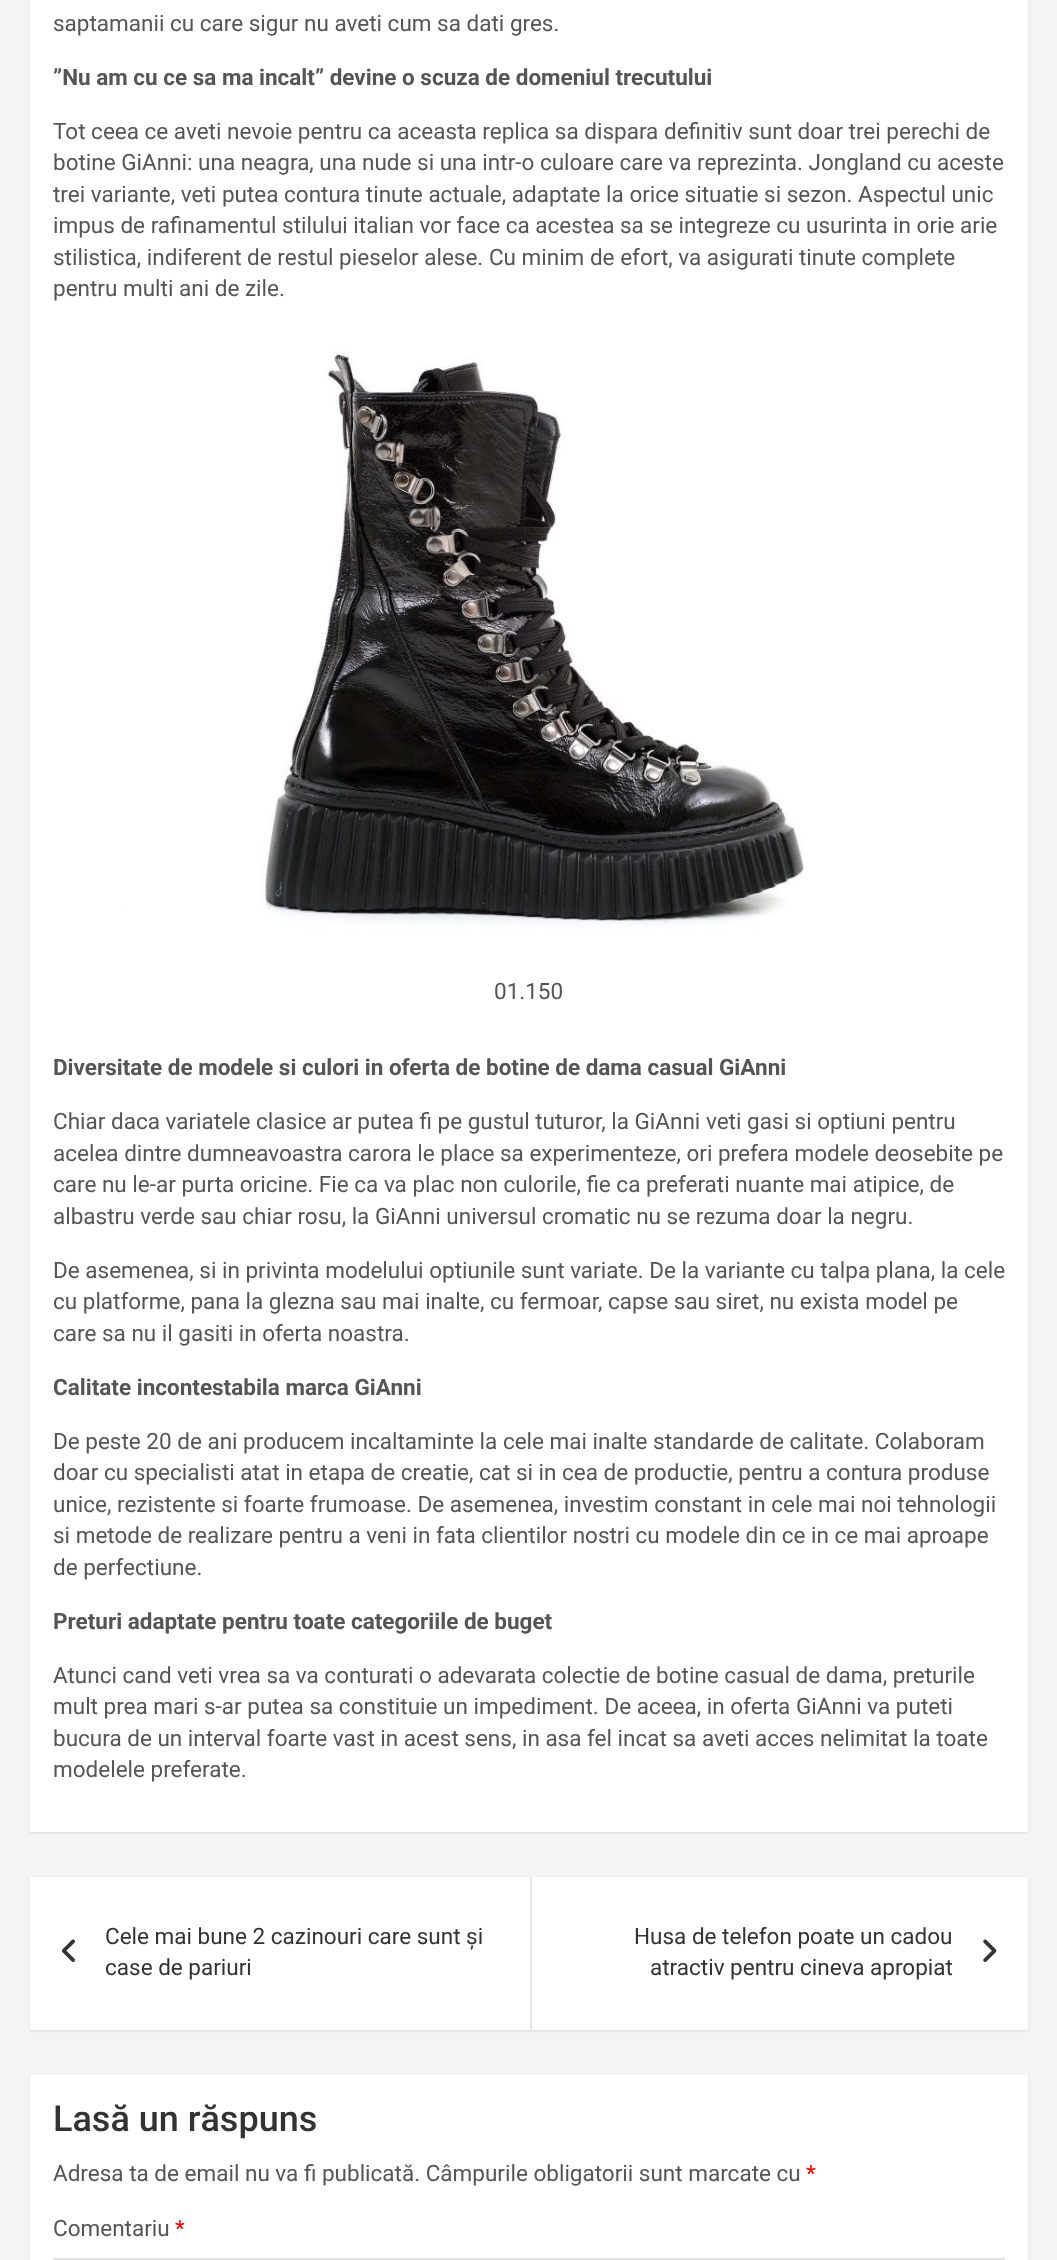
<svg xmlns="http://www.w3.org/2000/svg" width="1057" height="2260">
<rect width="100%" height="100%" fill="#f4f4f4"/>
<rect x="30" y="-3" width="998" height="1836" fill="#0000001a" filter="blur(1px)"/>
<rect x="30" width="998" height="1832" fill="#fff"/>
<text x="53" y="31" style="font-family:Roboto;font-size:22.5px;fill:#555">saptamanii cu care sigur nu aveti cum sa dati gres.</text>
<text x="53" y="85" style="font-family:Roboto;font-size:22.5px;font-weight:bold;fill:#555">”Nu am cu ce sa ma incalt” devine o scuza de domeniul trecutului</text>
<text x="53" y="139" style="font-family:Roboto;font-size:22.5px;fill:#555">Tot ceea ce aveti nevoie pentru ca aceasta replica sa dispara definitiv sunt doar trei perechi de</text>
<text x="53" y="170" style="font-family:Roboto;font-size:22.5px;fill:#555">botine GiAnni: una neagra, una nude si una intr-o culoare care va reprezinta. Jongland cu aceste</text>
<text x="53" y="202" style="font-family:Roboto;font-size:22.5px;fill:#555">trei variante, veti putea contura tinute actuale, adaptate la orice situatie si sezon. Aspectul unic</text>
<text x="53" y="233" style="font-family:Roboto;font-size:22.5px;fill:#555">impus de rafinamentul stilului italian vor face ca acestea sa se integreze cu usurinta in orie arie</text>
<text x="53" y="265" style="font-family:Roboto;font-size:22.5px;fill:#555">stilistica, indiferent de restul pieselor alese. Cu minim de efort, va asigurati tinute complete</text>
<text x="53" y="296" style="font-family:Roboto;font-size:22.5px;fill:#555">pentru multi ani de zile.</text>
<image x="124" y="350" width="681" height="581" href="media/1.png"/>
<text x="494" y="999" style="font-family:Roboto;font-size:22.5px;fill:#555">01.150</text>
<text x="53" y="1075" style="font-family:Roboto;font-size:22.5px;font-weight:bold;fill:#555">Diversitate de modele si culori in oferta de botine de dama casual GiAnni</text>
<text x="53" y="1129" style="font-family:Roboto;font-size:22.5px;fill:#555">Chiar daca variatele clasice ar putea fi pe gustul tuturor, la GiAnni veti gasi si optiuni pentru</text>
<text x="53" y="1161" style="font-family:Roboto;font-size:22.5px;fill:#555">acelea dintre dumneavoastra carora le place sa experimenteze, ori prefera modele deosebite pe</text>
<text x="53" y="1192" style="font-family:Roboto;font-size:22.5px;fill:#555">care nu le-ar purta oricine. Fie ca va plac non culorile, fie ca preferati nuante mai atipice, de</text>
<text x="53" y="1224" style="font-family:Roboto;font-size:22.5px;fill:#555">albastru verde sau chiar rosu, la GiAnni universul cromatic nu se rezuma doar la negru.</text>
<text x="53" y="1278" style="font-family:Roboto;font-size:22.5px;fill:#555">De asemenea, si in privinta modelului optiunile sunt variate. De la variante cu talpa plana, la cele</text>
<text x="53" y="1309" style="font-family:Roboto;font-size:22.5px;fill:#555">cu platforme, pana la glezna sau mai inalte, cu fermoar, capse sau siret, nu exista model pe</text>
<text x="53" y="1341" style="font-family:Roboto;font-size:22.5px;fill:#555">care sa nu il gasiti in oferta noastra.</text>
<text x="53" y="1395" style="font-family:Roboto;font-size:22.5px;font-weight:bold;fill:#555">Calitate incontestabila marca GiAnni</text>
<text x="53" y="1449" style="font-family:Roboto;font-size:22.5px;fill:#555">De peste 20 de ani producem incaltaminte la cele mai inalte standarde de calitate. Colaboram</text>
<text x="53" y="1480" style="font-family:Roboto;font-size:22.5px;fill:#555">doar cu specialisti atat in etapa de creatie, cat si in cea de productie, pentru a contura produse</text>
<text x="53" y="1512" style="font-family:Roboto;font-size:22.5px;fill:#555">unice, rezistente si foarte frumoase. De asemenea, investim constant in cele mai noi tehnologii</text>
<text x="53" y="1543" style="font-family:Roboto;font-size:22.5px;fill:#555">si metode de realizare pentru a veni in fata clientilor nostri cu modele din ce in ce mai aproape</text>
<text x="53" y="1575" style="font-family:Roboto;font-size:22.5px;fill:#555">de perfectiune.</text>
<text x="53" y="1629" style="font-family:Roboto;font-size:22.5px;font-weight:bold;fill:#555">Preturi adaptate pentru toate categoriile de buget</text>
<text x="53" y="1683" style="font-family:Roboto;font-size:22.5px;fill:#555">Atunci cand veti vrea sa va conturati o adevarata colectie de botine casual de dama, preturile</text>
<text x="53" y="1714" style="font-family:Roboto;font-size:22.5px;fill:#555">mult prea mari s-ar putea sa constituie un impediment. De aceea, in oferta GiAnni va puteti</text>
<text x="53" y="1746" style="font-family:Roboto;font-size:22.5px;fill:#555">bucura de un interval foarte vast in acest sens, in asa fel incat sa aveti acces nelimitat la toate</text>
<text x="53" y="1777" style="font-family:Roboto;font-size:22.5px;fill:#555">modelele preferate.</text>
<rect x="30" y="1878" width="998" height="153" fill="#0000001a" filter="blur(1px)"/>
<rect x="30" y="1877" width="998" height="153" fill="#fff"/>
<image x="61" y="1939" width="14" height="23" href="media/2.png"/>
<text x="105" y="1944" style="font-family:Roboto;font-size:22.5px;fill:#333">Cele mai bune 2 cazinouri care sunt și</text>
<text x="105" y="1975" style="font-family:Roboto;font-size:22.5px;fill:#333">case de pariuri</text>
<rect x="530" y="1877" width="2" height="153" fill="#e6e6e6"/>
<text x="634" y="1944" style="font-family:Roboto;font-size:22.5px;fill:#333">Husa de telefon poate un cadou</text>
<image x="983" y="1939" width="14" height="23" href="media/3.png"/>
<text x="650" y="1975" style="font-family:Roboto;font-size:22.5px;fill:#333">atractiv pentru cineva apropiat</text>
<rect x="30" y="2076" width="998" height="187" fill="#0000001a" filter="blur(1px)"/>
<rect x="30" y="2075" width="998" height="185" fill="#fff"/>
<text x="53" y="2131" style="font-family:Roboto;font-size:36px;font-weight:500;fill:#333">Lasă un răspuns</text>
<text x="53" y="2181" style="font-family:Roboto;font-size:22.5px;fill:#555">Adresa ta de email nu va fi publicată. Câmpurile obligatorii sunt marcate cu</text>
<text x="806" y="2181" style="font-family:Roboto;font-size:22.5px;fill:#f00">*</text>
<text x="53" y="2236" style="font-family:Roboto;font-size:22.5px;fill:#555">Comentariu</text>
<text x="175" y="2236" style="font-family:Roboto;font-size:22.5px;fill:#f00">*</text>
<rect x="54" y="2259" width="950" height="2" fill="none" stroke="#e3e3e3" stroke-width="2"/>
</svg>
